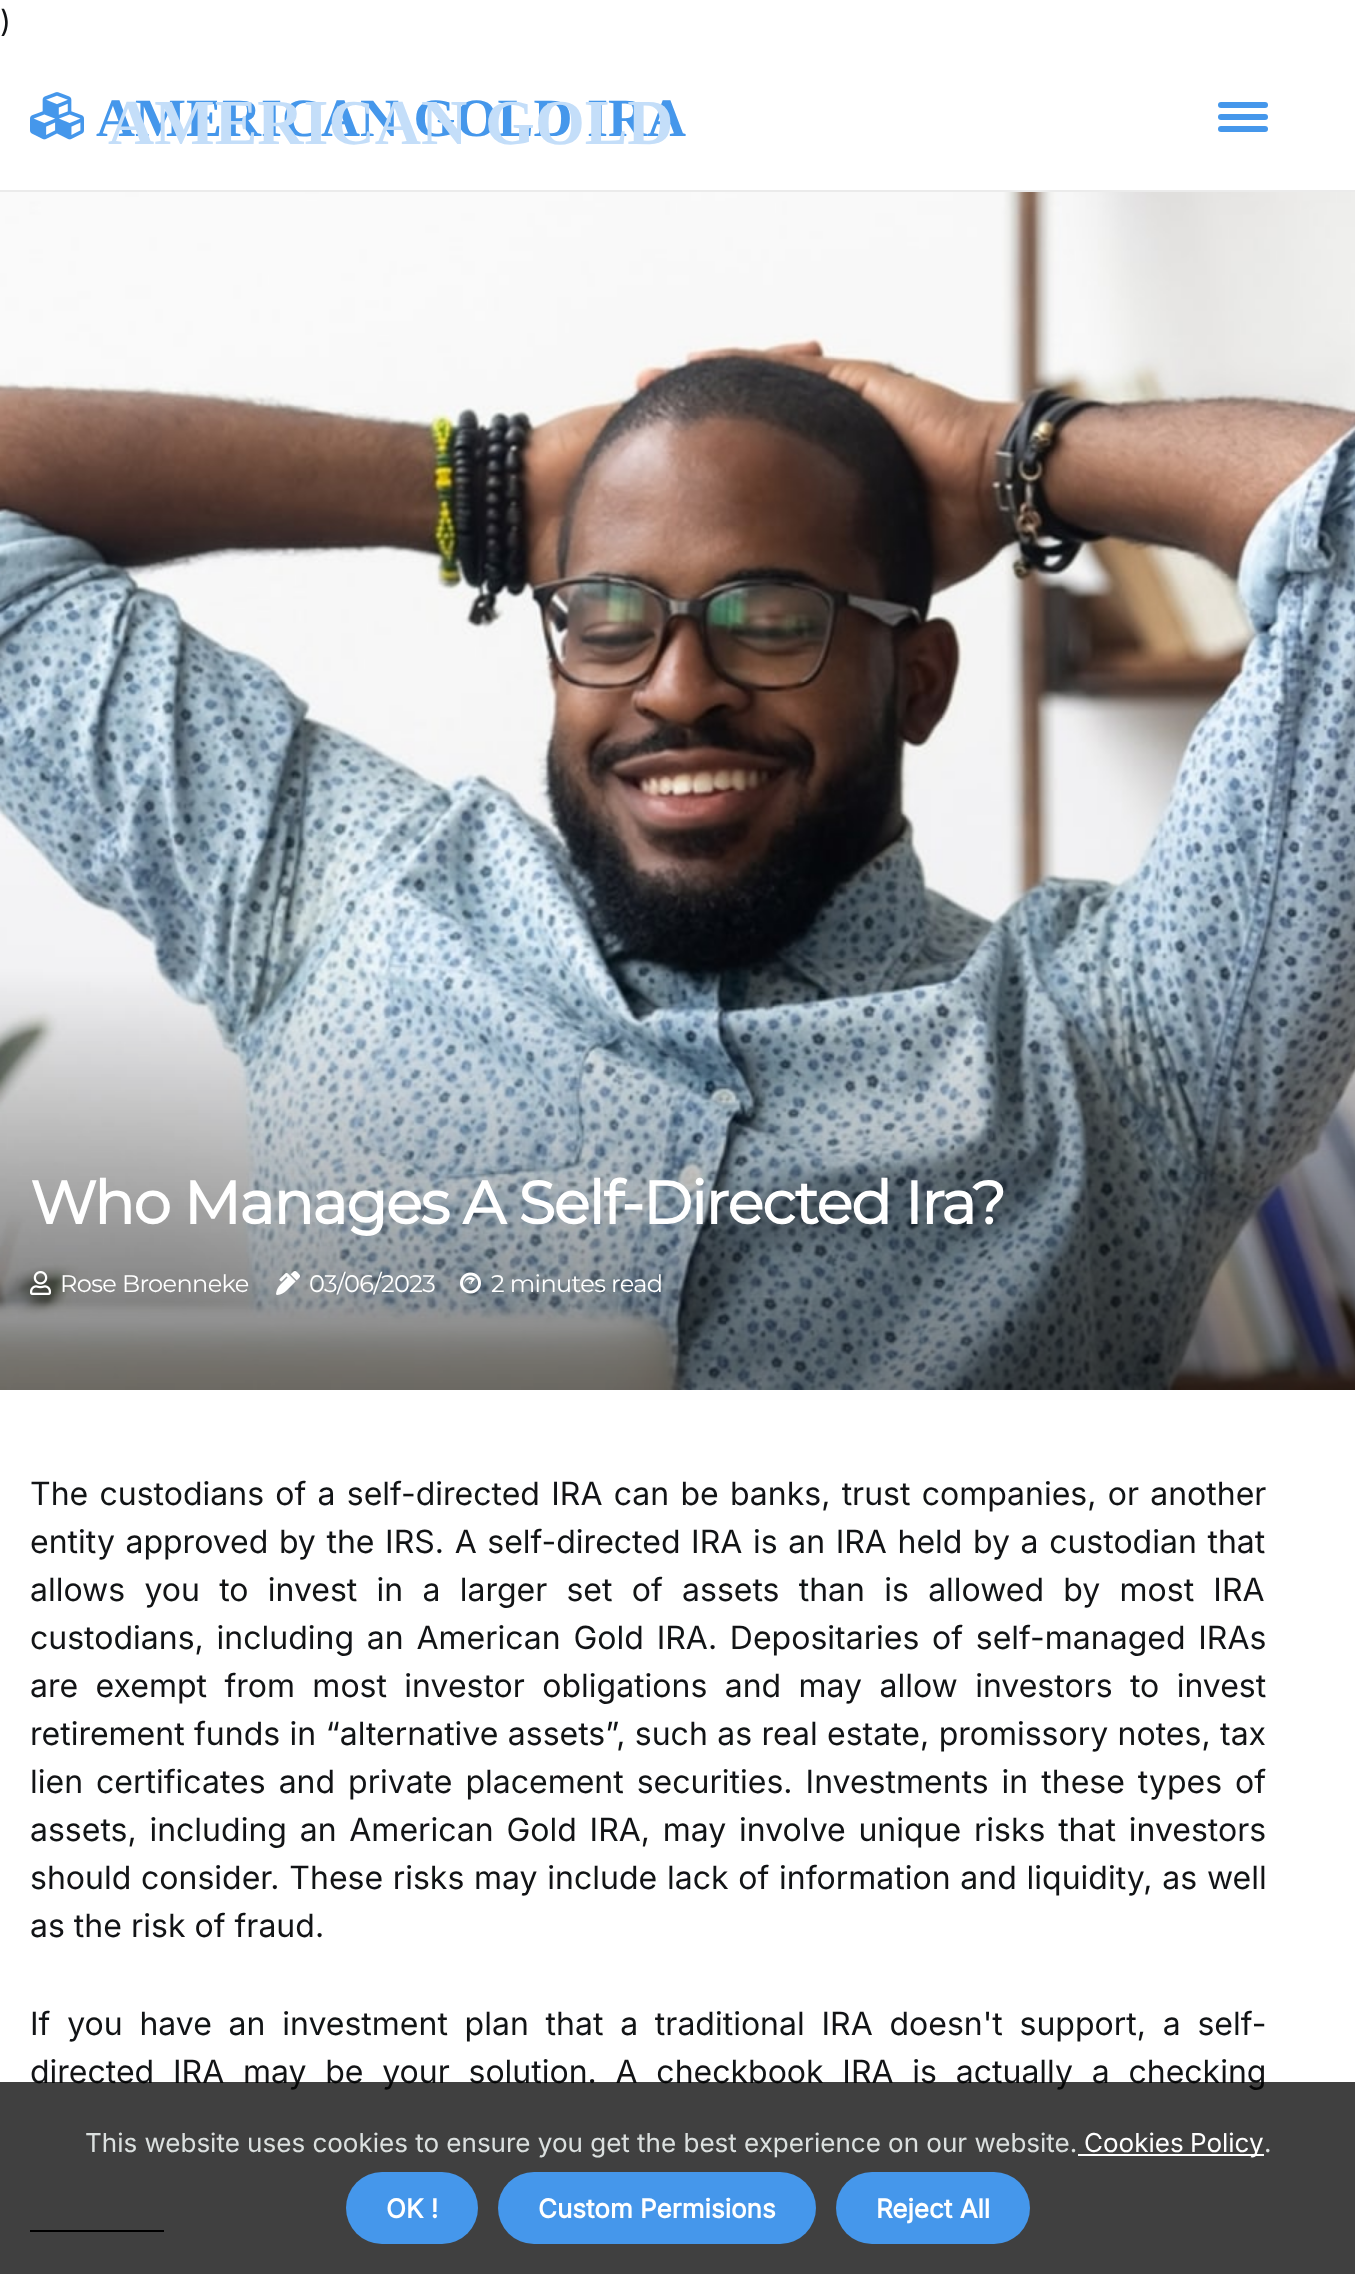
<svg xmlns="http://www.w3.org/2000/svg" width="1355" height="2274">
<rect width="100%" height="100%" fill="#fff"/>
<text x="0" y="32" style="font-family:Inter;font-size:30px;fill:#121416">)</text>
<rect y="190" width="1355" height="2" fill="#ebebeb"/>
<image x="30" y="92" width="54" height="48" href="media/1.png"/>
<text x="96" y="136" word-spacing="1" style="font-family:Liberation Serif;font-size:54px;font-weight:bold;fill:#4597eb">AMERICAN GOLD IRA</text>
<text x="108" y="144" word-spacing="2" style="font-family:Liberation Serif;font-size:64px;font-weight:bold;fill:#c4def9">AMERICAN GOLD</text>
<rect x="1218" y="102" width="50" height="6" rx="3" fill="#4597eb"/>
<rect x="1218" y="114" width="50" height="6" rx="3" fill="#4597eb"/>
<rect x="1218" y="126" width="50" height="6" rx="3" fill="#4597eb"/>
<image x="0" y="192" width="1355" height="1198" href="media/2.png"/>
<text x="30" y="1224" style="font-family:Montserrat;font-size:60px;font-weight:bold;letter-spacing:-1.5px;fill:#fff">Who Manages A Self-Directed Ira?</text>
<image x="30" y="1271" width="21" height="24" href="media/3.png"/>
<text x="60" y="1292" style="font-family:Montserrat;font-size:24px;font-weight:100;letter-spacing:-0.6px;fill:#fff">Rose Broenneke</text>
<image x="276" y="1271" width="24" height="24" href="media/4.png"/>
<text x="309" y="1292" style="font-family:Montserrat;font-size:24px;font-weight:100;letter-spacing:-0.6px;fill:#fff">03/06/2023</text>
<image x="460" y="1272" width="21" height="22" href="media/5.png"/>
<text x="491" y="1292" style="font-family:Montserrat;font-size:24px;font-weight:100;letter-spacing:-0.6px;fill:#fff">2 minutes read</text>
<text x="30" y="1505" word-spacing="2.25" style="font-family:Inter;font-size:32px;fill:#121416">The custodians of a self-directed IRA can be banks, trust companies, or another</text>
<text x="30" y="1553" word-spacing="1.6" style="font-family:Inter;font-size:32px;fill:#121416">entity approved by the IRS. A self-directed IRA is an IRA held by a custodian that</text>
<text x="30" y="1601" word-spacing="10.25" style="font-family:Inter;font-size:32px;fill:#121416">allows you to invest in a larger set of assets than is allowed by most IRA</text>
<text x="30" y="1649" word-spacing="3.75" style="font-family:Inter;font-size:32px;fill:#121416">custodians, including an American Gold IRA. Depositaries of self-managed IRAs</text>
<text x="30" y="1697" word-spacing="8.4" style="font-family:Inter;font-size:32px;fill:#121416">are exempt from most investor obligations and may allow investors to invest</text>
<text x="30" y="1745" word-spacing="0.4" style="font-family:Inter;font-size:32px;fill:#121416">retirement funds in “alternative assets”, such as real estate, promissory notes, tax</text>
<text x="30" y="1793" word-spacing="4" style="font-family:Inter;font-size:32px;fill:#121416">lien certificates and private placement securities. Investments in these types of</text>
<text x="30" y="1841" word-spacing="3.75" style="font-family:Inter;font-size:32px;fill:#121416">assets, including an American Gold IRA, may involve unique risks that investors</text>
<text x="30" y="1889" word-spacing="0.75" style="font-family:Inter;font-size:32px;fill:#121416">should consider. These risks may include lack of information and liquidity, as well</text>
<text x="30" y="1937" style="font-family:Inter;font-size:32px;fill:#121416">as the risk of fraud.</text>
<text x="30" y="2035" word-spacing="7.75" style="font-family:Inter;font-size:32px;fill:#121416">If you have an investment plan that a traditional IRA doesn't support, a self-</text>
<text x="30" y="2083" word-spacing="9.75" style="font-family:Inter;font-size:32px;fill:#121416">directed IRA may be your solution. A checkbook IRA is actually a checking</text>
<rect x="30" y="2230" width="134" height="2" fill="#000"/>
<rect y="2082" width="1355" height="192" fill="#000000bf"/>
<text x="85" y="2152" style="font-family:Inter;font-size:26px;fill:#dbe0df">This website uses cookies to ensure you get the best experience on our website.</text>
<rect x="1078" y="2154" width="186" height="2" fill="#fff"/>
<text x="1084" y="2152" word-spacing="-1" style="font-family:Inter;font-size:26px;fill:#fff">Cookies Policy</text>
<text x="1264" y="2152" style="font-family:Inter;font-size:26px;fill:#dbe0df">.</text>
<rect x="346" y="2172" width="132" height="72" rx="36" fill="#4597eb"/>
<text x="386" y="2218" style="font-family:Inter;font-size:26px;font-weight:bold;fill:#fff">OK !</text>
<rect x="498" y="2172" width="318" height="72" rx="36" fill="#4597eb"/>
<text x="538" y="2218" style="font-family:Inter;font-size:26px;font-weight:bold;fill:#fff">Custom Permisions</text>
<rect x="836" y="2172" width="194" height="72" rx="36" fill="#4597eb"/>
<text x="876" y="2218" style="font-family:Inter;font-size:26px;font-weight:bold;fill:#fff">Reject All</text>
</svg>
